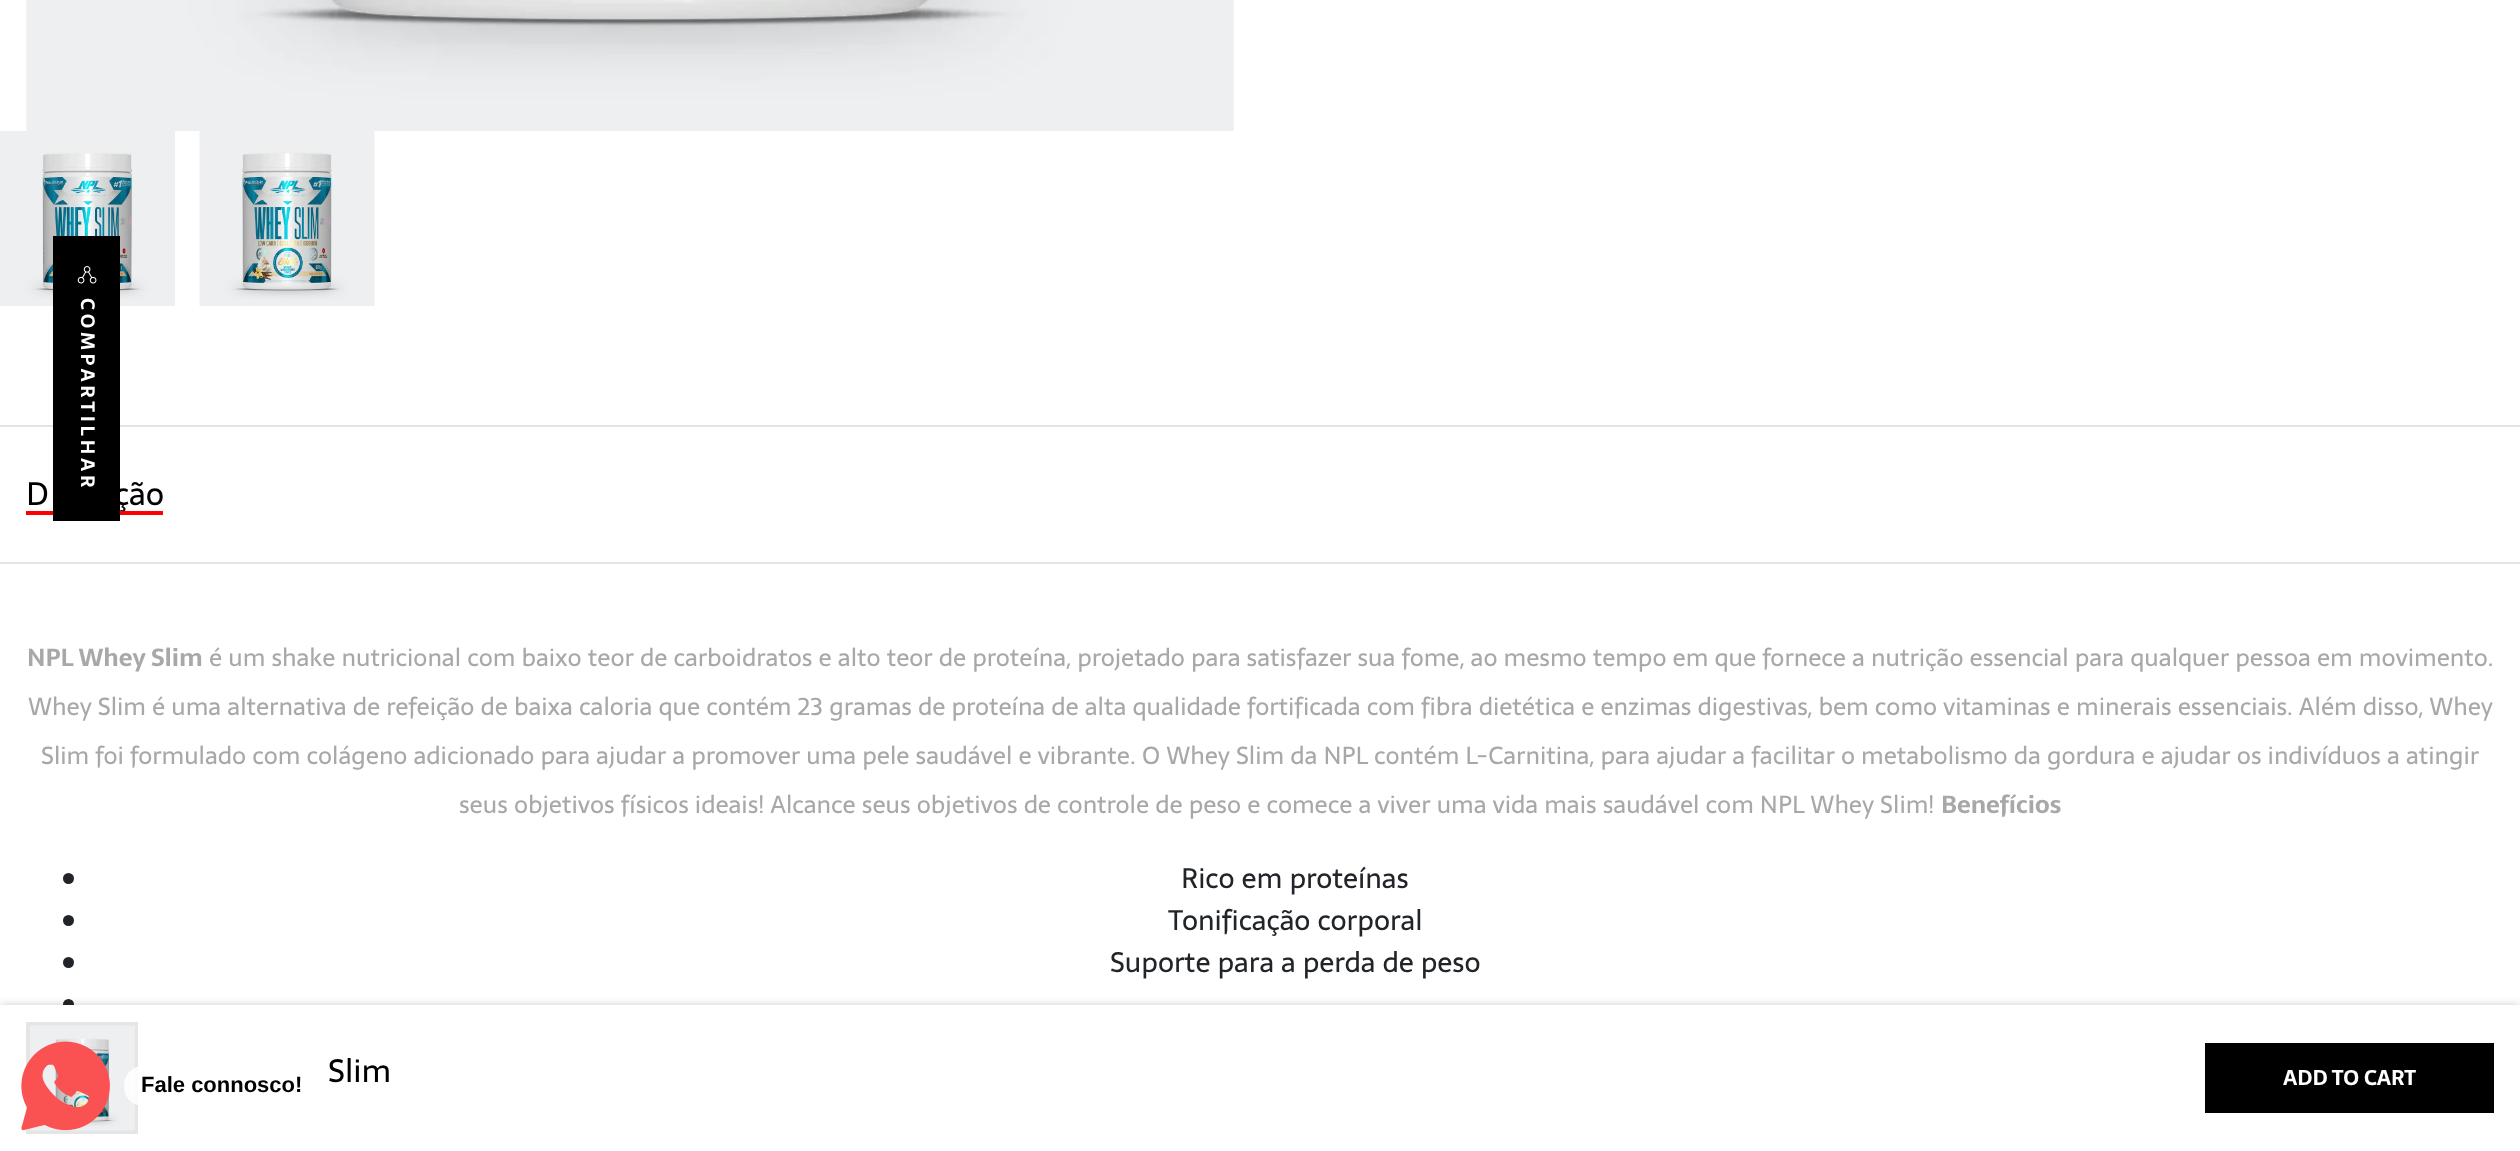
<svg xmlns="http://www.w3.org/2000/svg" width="2520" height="1151">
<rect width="100%" height="100%" fill="#fff"/>
<rect y="425" width="2520" height="2" fill="#e4e4e4"/>
<text x="114" y="505" style="font-family:Sarala;font-size:32px;fill:#000">ção</text>
<rect x="26" y="511" width="137" height="4" fill="#f00"/>
<image x="0" y="131" width="175" height="175" href="media/3.png"/>
<rect x="53" y="236" width="67" height="285" fill="#000"/>
<image x="77" y="266" width="20" height="18" href="media/1.png"/>
<text x="81" y="298" transform="rotate(90 81 298)" style="font-family:Sarala;font-size:19.25px;font-weight:bold;letter-spacing:3.8px;fill:#fff">COMPARTILHAR</text>
<rect y="562" width="2520" height="2" fill="#e4e4e4"/>
<text x="26" y="505" style="font-family:Sarala;font-size:32px;fill:#000">D</text>
<text x="27" y="666" style="font-family:Sarala;font-size:24.5px;font-weight:bold;fill:#a8a8a8">NPL Whey Slim</text>
<text x="209" y="666" style="font-family:Sarala;font-size:24.5px;fill:#a8a8a8">é um shake nutricional com baixo teor de carboidratos e alto teor de proteína, projetado para satisfazer sua fome, ao mesmo tempo em que fornece a nutrição essencial para qualquer pessoa em movimento.</text>
<text x="28" y="715" style="font-family:Sarala;font-size:24.5px;fill:#a8a8a8">Whey Slim é uma alternativa de refeição de baixa caloria que contém 23 gramas de proteína de alta qualidade fortificada com fibra dietética e enzimas digestivas, bem como vitaminas e minerais essenciais. Além disso, Whey</text>
<text x="41" y="764" style="font-family:Sarala;font-size:24.5px;fill:#a8a8a8">Slim foi formulado com colágeno adicionado para ajudar a promover uma pele saudável e vibrante. O Whey Slim da NPL contém L-Carnitina, para ajudar a facilitar o metabolismo da gordura e ajudar os indivíduos a atingir</text>
<text x="459" y="813" style="font-family:Sarala;font-size:24.5px;fill:#a8a8a8">seus objetivos físicos ideais! Alcance seus objetivos de controle de peso e comece a viver uma vida mais saudável com NPL Whey Slim!</text>
<text x="1941" y="813" style="font-family:Sarala;font-size:24.5px;font-weight:bold;fill:#a8a8a8">Benefícios</text>
<circle cx="68.5" cy="878.5" r="5.5" fill="#212529"/>
<text x="1181" y="888" style="font-family:Sarala;font-size:28px;fill:#212529">Rico em proteínas</text>
<circle cx="68.5" cy="920.5" r="5.5" fill="#212529"/>
<text x="1168" y="930" style="font-family:Sarala;font-size:28px;fill:#212529">Tonificação corporal</text>
<circle cx="68.5" cy="962.5" r="5.5" fill="#212529"/>
<text x="1110" y="972" style="font-family:Sarala;font-size:28px;fill:#212529">Suporte para a perda de peso</text>
<circle cx="68.5" cy="1004.5" r="5.5" fill="#212529"/>
<image x="26" y="0" width="1208" height="131" href="media/2.png"/>
<image x="199" y="131" width="176" height="175" href="media/4.png"/>
<rect y="1005" width="2520" height="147" fill="#00000033" filter="blur(4.5px)"/>
<rect y="1005" width="2520" height="146" fill="#fff"/>
<rect x="28" y="1024" width="108" height="108" fill="none" stroke="#e5e5e5" stroke-width="4"/>
<image x="30" y="1025" width="105" height="106" href="media/5.png"/>
<text x="328" y="1082" style="font-family:Sarala;font-size:32px;fill:#000">Slim</text>
<rect x="2205" y="1043" width="289" height="70" fill="#000"/>
<text x="2283" y="1085" style="font-family:Sarala;font-size:21px;font-weight:bold;fill:#fff">ADD TO CART</text>
<image x="21" y="1041" width="89" height="90" href="media/6.png"/>
<rect x="124" y="1066" width="195" height="40" rx="19" fill="#ffffffd9"/>
<text x="141" y="1092" style="font-family:Liberation Sans;font-size:22px;font-weight:bold;fill:#000">Fale connosco!</text>
</svg>
